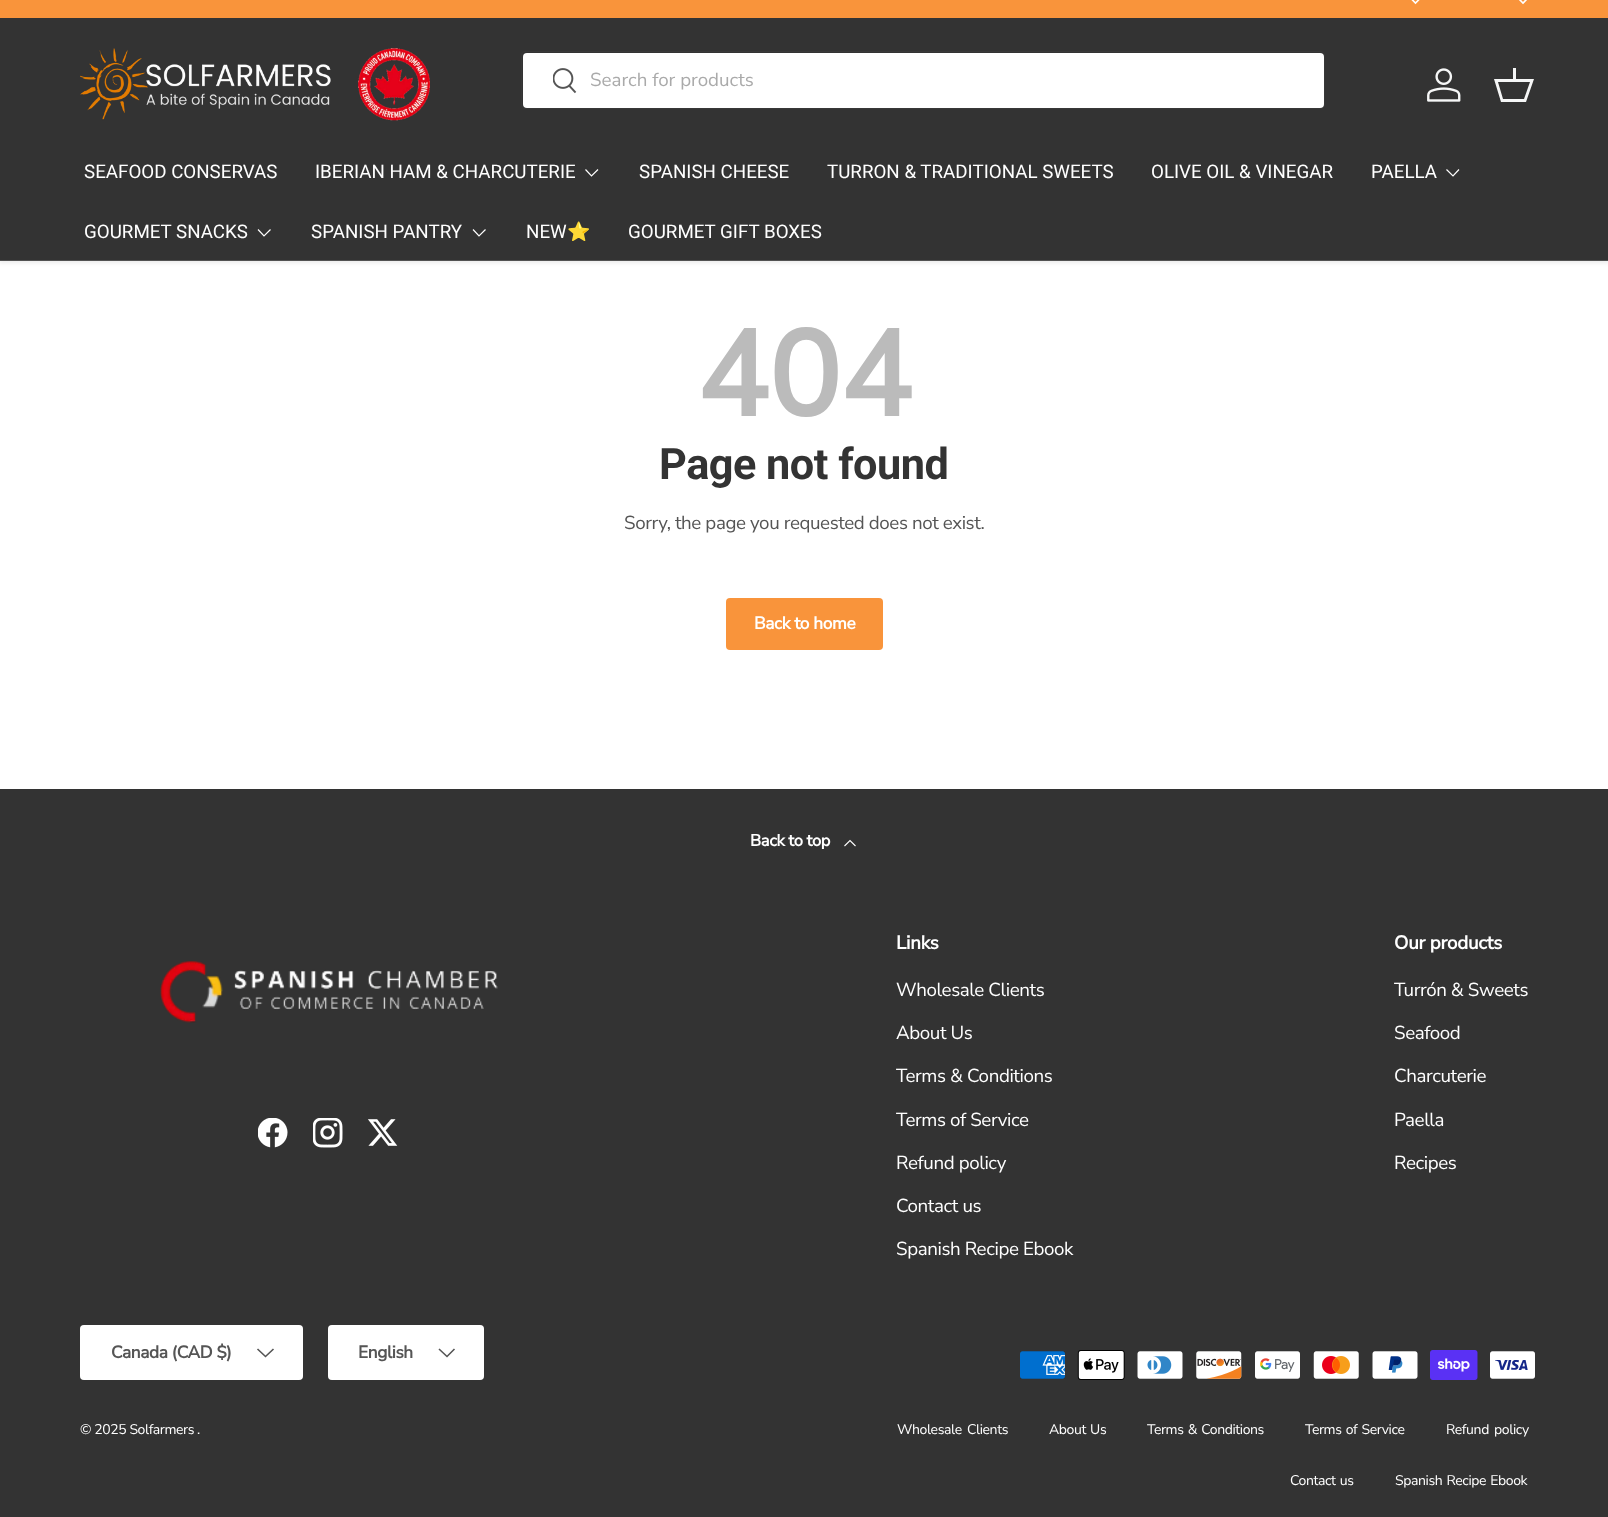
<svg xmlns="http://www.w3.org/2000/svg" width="1608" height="1517">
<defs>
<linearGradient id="g1" gradientUnits="userSpaceOnUse" x1="421" y1="567" x2="875" y2="680"><stop offset="0.6" stop-color="#faac67"/><stop offset="0.6" stop-color="#f9943b"/><stop offset="1" stop-color="#f9943b"/></linearGradient>
</defs>
<rect width="100%" height="100%" fill="#fff"/>
<rect x="-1" y="16" width="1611" height="247" fill="#00000014" filter="blur(2px)"/>
<rect width="1608" height="18" fill="#f9943b"/>
<path d="M1423.5-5l-8 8l-8-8" fill="none" stroke="#fff" stroke-width="1.6"/>
<path d="M1531-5l-8 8l-8-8" fill="none" stroke="#fff" stroke-width="1.6"/>
<rect y="18" width="1608" height="242" fill="#333"/>
<image x="80" y="48" width="350" height="73" href="media/1.png"/>
<rect x="521.5" y="51.5" width="803" height="57" rx="3.5" fill="none" stroke="#383838"/>
<rect x="523" y="53" width="801" height="55" rx="4" fill="#fff"/>
<image x="553" y="68" width="24" height="26" href="media/2.png"/>
<text x="590" y="86" style="font-family:Nunito Sans;font-size:18.75px;fill:#aaa">Search for products</text>
<image x="1427" y="68" width="34" height="34" href="media/3.png"/>
<path d="M1513 79v-11h3v11h18l-8 23h-25l-7-23zm-15 3l5 17h21l6-17z" fill="#f6f7f7"/>
<text x="84" y="178" style="font-family:Roboto;font-size:18.75px;fill:#fff">SEAFOOD CONSERVAS</text>
<text x="315" y="178" style="font-family:Roboto;font-size:18.75px;fill:#fff">IBERIAN HAM &amp; CHARCUTERIE</text>
<path d="M598 169.5l-6.5 6.5l-6-6.5" fill="none" stroke="#fff" stroke-width="1.2"/>
<text x="639" y="178" style="font-family:Roboto;font-size:18.75px;fill:#fff">SPANISH CHEESE</text>
<text x="827" y="178" style="font-family:Roboto;font-size:18.75px;fill:#fff">TURRON &amp; TRADITIONAL SWEETS</text>
<text x="1151" y="178" style="font-family:Roboto;font-size:18.75px;fill:#fff">OLIVE OIL &amp; VINEGAR</text>
<text x="1371" y="178" style="font-family:Roboto;font-size:18.75px;fill:#fff">PAELLA</text>
<path d="M1459 169.5l-6 6.5l-6.5-6.5" fill="none" stroke="#fff" stroke-width="1.2"/>
<text x="84" y="238" style="font-family:Roboto;font-size:18.75px;fill:#fff">GOURMET SNACKS</text>
<path d="M270.5 229.5l-6.5 6.5l-6-6.5" fill="none" stroke="#fff" stroke-width="1.2"/>
<text x="311" y="238" style="font-family:Roboto;font-size:18.75px;fill:#fff">SPANISH PANTRY</text>
<path d="M485.5 229.5l-6.5 6.5l-6-6.5" fill="none" stroke="#fff" stroke-width="1.2"/>
<text x="526" y="238" style="font-family:Roboto;font-size:18.75px;fill:#fff">NEW</text>
<text x="567" y="238" style="font-family:Noto Color Emoji;font-size:18.75px;fill:#fff">⭐</text>
<text x="628" y="238" style="font-family:Roboto;font-size:18.75px;fill:#fff">GOURMET GIFT BOXES</text>
<rect y="260" width="1608" height="1" fill="#525252"/>
<text x="697" y="416" style="font-family:Nunito Sans;font-size:120px;font-weight:bold;letter-spacing:-0.4px;fill:#bbb">404</text>
<text x="659" y="479" style="font-family:Roboto;font-size:43.25px;font-weight:bold;letter-spacing:-0.5px;fill:#333">Page not found</text>
<text x="624" y="529" style="font-family:Nunito Sans;font-size:18.75px;letter-spacing:-0.4px;fill:#555">Sorry, the page you requested does not exist.</text>
<rect x="726" y="598" width="157" height="52" rx="4" fill="url(#g1)"/>
<text x="754" y="629" style="font-family:Nunito Sans;font-size:17.25px;font-weight:bold;letter-spacing:-0.4px;fill:#fff">Back to home</text>
<rect y="789" width="1608" height="728" fill="#333"/>
<text x="750" y="846" style="font-family:Nunito Sans;font-size:16.5px;font-weight:bold;letter-spacing:-0.4px;fill:#fff">Back to top</text>
<path d="M844.5 846l5.5-5.5l5.5 5.5" fill="none" stroke="#fff" stroke-width="1.1"/>
<image x="160" y="961" width="338" height="62" href="media/4.png"/>
<image x="258" y="1118" width="30" height="30" href="media/5.png"/>
<image x="313" y="1118" width="30" height="30" href="media/6.png"/>
<image x="368" y="1119" width="30" height="27" href="media/7.png"/>
<text x="896" y="949" style="font-family:Nunito Sans;font-size:18.75px;font-weight:bold;letter-spacing:-0.25px;fill:#fff">Links</text>
<text x="896" y="996" style="font-family:Nunito Sans;font-size:18.75px;letter-spacing:-0.4px;fill:#fff">Wholesale Clients</text>
<text x="896" y="1039" style="font-family:Nunito Sans;font-size:18.75px;letter-spacing:-0.4px;fill:#fff">About Us</text>
<text x="896" y="1082" style="font-family:Nunito Sans;font-size:18.75px;letter-spacing:-0.4px;fill:#fff">Terms &amp; Conditions</text>
<text x="896" y="1126" style="font-family:Nunito Sans;font-size:18.75px;letter-spacing:-0.4px;fill:#fff">Terms of Service</text>
<text x="896" y="1169" style="font-family:Nunito Sans;font-size:18.75px;letter-spacing:-0.4px;fill:#fff">Refund policy</text>
<text x="896" y="1212" style="font-family:Nunito Sans;font-size:18.75px;letter-spacing:-0.4px;fill:#fff">Contact us</text>
<text x="896" y="1255" style="font-family:Nunito Sans;font-size:18.75px;letter-spacing:-0.4px;fill:#fff">Spanish Recipe Ebook</text>
<text x="1394" y="949" style="font-family:Nunito Sans;font-size:18.75px;font-weight:bold;letter-spacing:-0.25px;fill:#fff">Our products</text>
<text x="1394" y="996" style="font-family:Nunito Sans;font-size:18.75px;letter-spacing:-0.4px;fill:#fff">Turrón &amp; Sweets</text>
<text x="1394" y="1039" style="font-family:Nunito Sans;font-size:18.75px;letter-spacing:-0.4px;fill:#fff">Seafood</text>
<text x="1394" y="1082" style="font-family:Nunito Sans;font-size:18.75px;letter-spacing:-0.4px;fill:#fff">Charcuterie</text>
<text x="1394" y="1126" style="font-family:Nunito Sans;font-size:18.75px;letter-spacing:-0.4px;fill:#fff">Paella</text>
<text x="1394" y="1169" style="font-family:Nunito Sans;font-size:18.75px;letter-spacing:-0.4px;fill:#fff">Recipes</text>
<rect x="80" y="1325" width="223" height="55" rx="4" fill="#fff"/>
<rect x="80.5" y="1325.5" width="222" height="54" rx="3.5" fill="none" stroke="#ffffff33"/>
<text x="111" y="1358" style="font-family:Nunito Sans;font-size:17.25px;font-weight:bold;letter-spacing:-0.4px;fill:#555">Canada (CAD $)</text>
<path d="M273.5 1349l-8 7.5l-8-7.5" fill="none" stroke="#555" stroke-width="1.6"/>
<rect x="328" y="1325" width="156" height="55" rx="4" fill="#fff"/>
<rect x="328.5" y="1325.5" width="155" height="54" rx="3.5" fill="none" stroke="#ffffff33"/>
<text x="358" y="1358" style="font-family:Nunito Sans;font-size:17.25px;font-weight:bold;letter-spacing:-0.4px;fill:#555">English</text>
<path d="M454.5 1349l-7.5 7.5l-8-7.5" fill="none" stroke="#555" stroke-width="1.6"/>
<image x="1020" y="1351" width="45" height="28" href="media/8.png"/>
<image x="1077" y="1350" width="48" height="30" href="media/9.png"/>
<image x="1137" y="1351" width="46" height="28" href="media/10.png"/>
<image x="1196" y="1351" width="46" height="28" href="media/11.png"/>
<image x="1255" y="1351" width="45" height="28" href="media/12.png"/>
<image x="1313" y="1351" width="46" height="28" href="media/13.png"/>
<image x="1372" y="1351" width="46" height="28" href="media/14.png"/>
<image x="1430" y="1350" width="48" height="30" href="media/15.png"/>
<image x="1490" y="1351" width="45" height="28" href="media/16.png"/>
<text x="80" y="1434" style="font-family:Nunito Sans;font-size:14px;letter-spacing:-0.4px;fill:#fff">© 2025 Solfarmers</text>
<text x="197" y="1434" style="font-family:Nunito Sans;font-size:14px;letter-spacing:-0.4px;fill:#fff">.</text>
<text x="897" y="1434" word-spacing="2" style="font-family:Nunito Sans;font-size:14px;letter-spacing:-0.4px;fill:#fff">Wholesale Clients</text>
<text x="1049" y="1434" word-spacing="1" style="font-family:Nunito Sans;font-size:14px;letter-spacing:-0.4px;fill:#fff">About Us</text>
<text x="1147" y="1434" word-spacing="1" style="font-family:Nunito Sans;font-size:14px;letter-spacing:-0.4px;fill:#fff">Terms &amp; Conditions</text>
<text x="1305" y="1434" word-spacing="1" style="font-family:Nunito Sans;font-size:14px;letter-spacing:-0.4px;fill:#fff">Terms of Service</text>
<text x="1446" y="1434" word-spacing="2" style="font-family:Nunito Sans;font-size:14px;letter-spacing:-0.4px;fill:#fff">Refund policy</text>
<text x="1290" y="1485" word-spacing="1" style="font-family:Nunito Sans;font-size:14px;letter-spacing:-0.4px;fill:#fff">Contact us</text>
<text x="1395" y="1485" word-spacing="1" style="font-family:Nunito Sans;font-size:14px;letter-spacing:-0.4px;fill:#fff">Spanish Recipe Ebook</text>
</svg>
